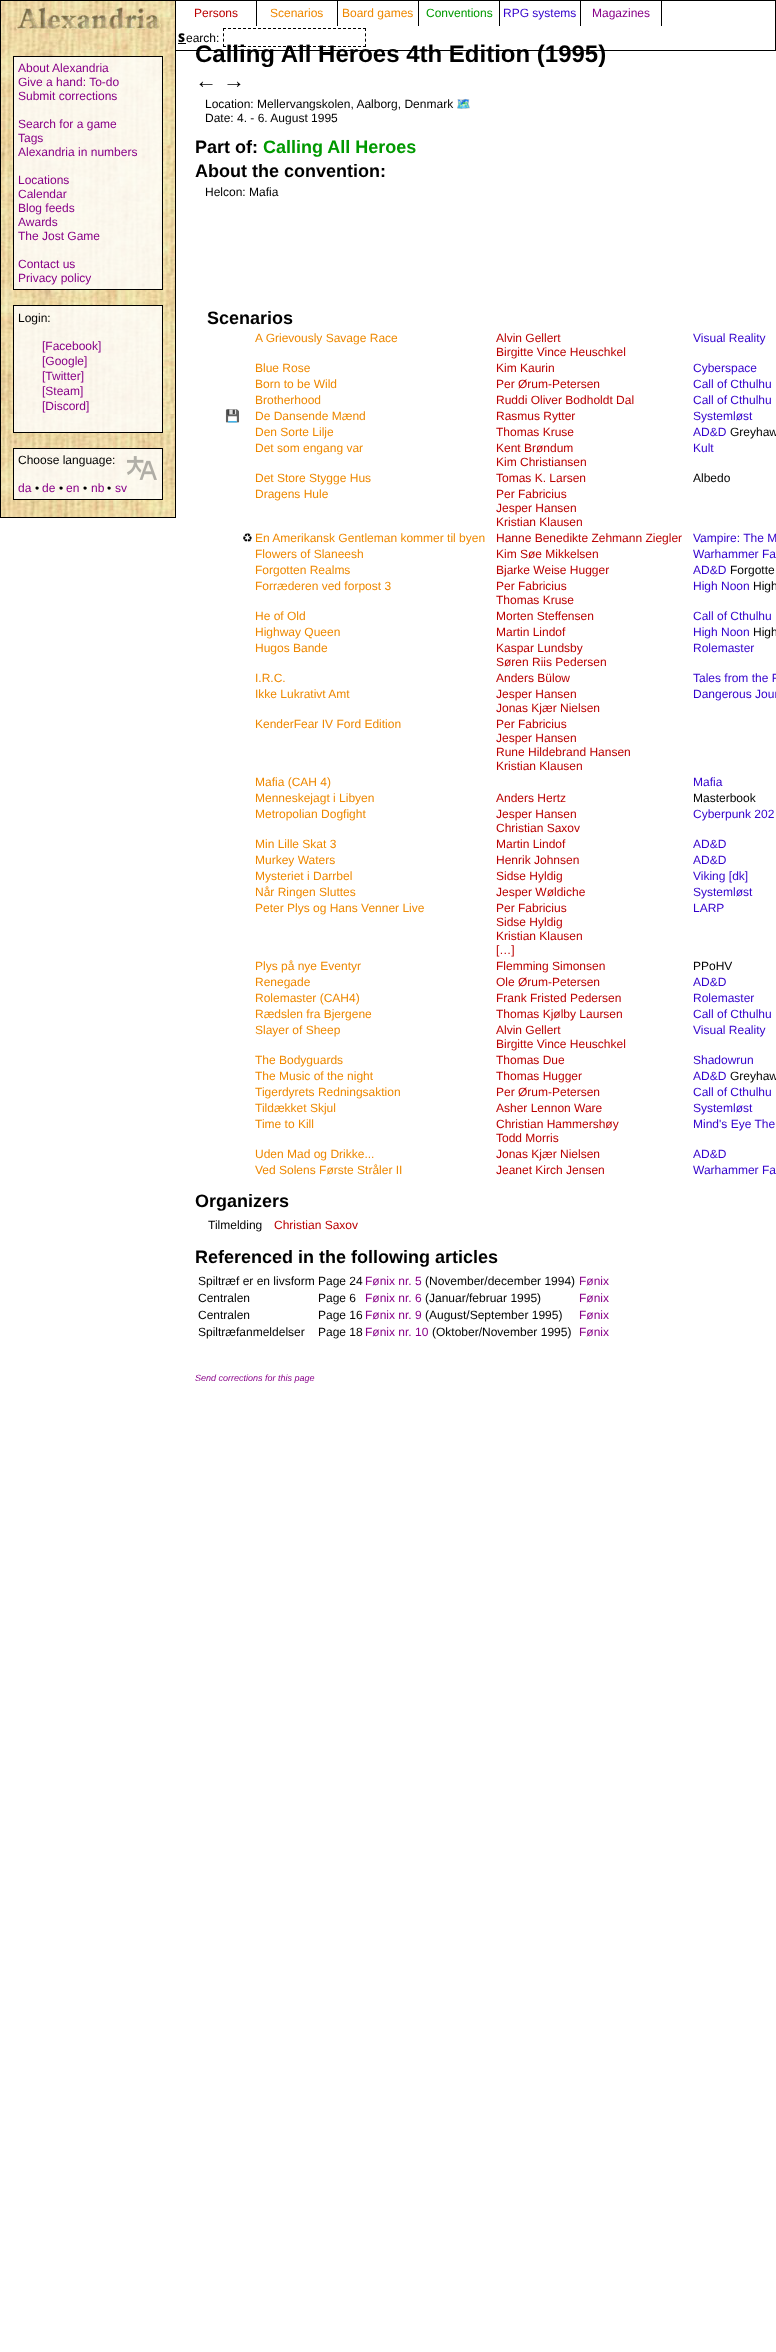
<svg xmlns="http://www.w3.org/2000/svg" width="776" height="2352">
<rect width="100%" height="100%" fill="#fff"/>
<image x="1" y="1" width="174" height="516" href="media/1.png"/>
<rect x="0.5" y="0.5" width="175" height="517" fill="none" stroke="#000"/>
<rect x="175.5" y="0.5" width="600" height="50" fill="none" stroke="#000"/>
<rect x="256" y="1" width="1" height="25" fill="#000"/>
<text x="194" y="17" style="font-family:Liberation Sans;font-size:12px;fill:#b00">Persons</text>
<rect x="337" y="1" width="1" height="25" fill="#000"/>
<text x="270" y="17" style="font-family:Liberation Sans;font-size:12px;fill:#e80">Scenarios</text>
<rect x="418" y="1" width="1" height="25" fill="#000"/>
<text x="342" y="17" style="font-family:Liberation Sans;font-size:12px;fill:#e80">Board games</text>
<rect x="499" y="1" width="1" height="25" fill="#000"/>
<text x="426" y="17" style="font-family:Liberation Sans;font-size:12px;fill:#090">Conventions</text>
<rect x="580" y="1" width="1" height="25" fill="#000"/>
<text x="503" y="17" style="font-family:Liberation Sans;font-size:12px;fill:#30c">RPG systems</text>
<rect x="661" y="1" width="1" height="25" fill="#000"/>
<text x="592" y="17" style="font-family:Liberation Sans;font-size:12px;fill:#808">Magazines</text>
<text x="178" y="42" style="font-family:Noto Sans;font-size:12px;font-weight:900;fill:#000">S</text>
<rect x="178" y="43" width="8" height="1" fill="#000"/>
<text x="186" y="42" style="font-family:Liberation Sans;font-size:12px;fill:#000">earch:</text>
<path d="M223 28.5h143" fill="none" stroke="#000" stroke-dasharray="3 2"/>
<path d="M365.5 28v19" fill="none" stroke="#000" stroke-dasharray="3 2.33"/>
<path d="M223 46.5h143" fill="none" stroke="#000" stroke-dasharray="3 2"/>
<path d="M223.5 28v19" fill="none" stroke="#000" stroke-dasharray="3 2.33"/>
<image x="16" y="7" width="148" height="25" href="media/2.png"/>
<rect x="13.5" y="56.5" width="149" height="233" fill="#ffffffcc" stroke="#000"/>
<text x="18" y="72" style="font-family:Liberation Sans;font-size:12px;fill:#808">About Alexandria</text>
<text x="18" y="86" style="font-family:Liberation Sans;font-size:12px;fill:#808">Give a hand: To-do</text>
<text x="18" y="100" style="font-family:Liberation Sans;font-size:12px;fill:#808">Submit corrections</text>
<text x="18" y="128" style="font-family:Liberation Sans;font-size:12px;fill:#808">Search for a game</text>
<text x="18" y="142" style="font-family:Liberation Sans;font-size:12px;fill:#808">Tags</text>
<text x="18" y="156" style="font-family:Liberation Sans;font-size:12px;fill:#808">Alexandria in numbers</text>
<text x="18" y="184" style="font-family:Liberation Sans;font-size:12px;fill:#808">Locations</text>
<text x="18" y="198" style="font-family:Liberation Sans;font-size:12px;fill:#808">Calendar</text>
<text x="18" y="212" style="font-family:Liberation Sans;font-size:12px;fill:#808">Blog feeds</text>
<text x="18" y="226" style="font-family:Liberation Sans;font-size:12px;fill:#808">Awards</text>
<text x="18" y="240" style="font-family:Liberation Sans;font-size:12px;fill:#808">The Jost Game</text>
<text x="18" y="268" style="font-family:Liberation Sans;font-size:12px;fill:#808">Contact us</text>
<text x="18" y="282" style="font-family:Liberation Sans;font-size:12px;fill:#808">Privacy policy</text>
<rect x="13.5" y="305.5" width="149" height="127" fill="#ffffffcc" stroke="#000"/>
<text x="18" y="322" style="font-family:Liberation Sans;font-size:12px;fill:#000">Login:</text>
<text x="42" y="350" style="font-family:Liberation Sans;font-size:12px;fill:#808">[Facebook]</text>
<text x="42" y="365" style="font-family:Liberation Sans;font-size:12px;fill:#808">[Google]</text>
<text x="42" y="380" style="font-family:Liberation Sans;font-size:12px;fill:#808">[Twitter]</text>
<text x="42" y="395" style="font-family:Liberation Sans;font-size:12px;fill:#808">[Steam]</text>
<text x="42" y="410" style="font-family:Liberation Sans;font-size:12px;fill:#808">[Discord]</text>
<rect x="13.5" y="448.5" width="149" height="51" fill="#ffffffcc" stroke="#000"/>
<text x="18" y="464" style="font-family:Liberation Sans;font-size:12px;fill:#000">Choose language:</text>
<image x="127" y="456" width="30" height="24" href="media/3.png"/>
<text x="18" y="492" style="font-family:Liberation Sans;font-size:12px;fill:#808">da</text>
<text x="35" y="492" style="font-family:Liberation Sans;font-size:12px;fill:#000">•</text>
<text x="42" y="492" style="font-family:Liberation Sans;font-size:12px;fill:#808">de</text>
<text x="59" y="492" style="font-family:Liberation Sans;font-size:12px;fill:#000">•</text>
<text x="66" y="492" style="font-family:Liberation Sans;font-size:12px;fill:#808">en</text>
<text x="83" y="492" style="font-family:Liberation Sans;font-size:12px;fill:#000">•</text>
<text x="91" y="492" style="font-family:Liberation Sans;font-size:12px;fill:#808">nb</text>
<text x="107" y="492" style="font-family:Liberation Sans;font-size:12px;fill:#000">•</text>
<text x="115" y="492" style="font-family:Liberation Sans;font-size:12px;fill:#808">sv</text>
<text x="195" y="62" style="font-family:Liberation Sans;font-size:24px;font-weight:bold;fill:#000">Calling All Heroes 4th Edition (1995)</text>
<text x="195" y="88" style="font-family:Liberation Sans;font-size:22px;font-weight:bold;fill:#000">← →</text>
<text x="205" y="108" style="font-family:Liberation Sans;font-size:12px;fill:#000">Location: Mellervangskolen, Aalborg, Denmark</text>
<text x="456" y="108" style="font-family:Noto Color Emoji;font-size:12px;fill:#808">🗺️</text>
<text x="205" y="122" style="font-family:Liberation Sans;font-size:12px;fill:#000">Date: 4. - 6. August 1995</text>
<text x="195" y="153" style="font-family:Liberation Sans;font-size:18px;font-weight:bold;fill:#000">Part of:</text>
<text x="263" y="153" style="font-family:Liberation Sans;font-size:18px;font-weight:bold;fill:#090">Calling All Heroes</text>
<text x="195" y="177" style="font-family:Liberation Sans;font-size:18px;font-weight:bold;fill:#000">About the convention:</text>
<text x="205" y="196" style="font-family:Liberation Sans;font-size:12px;fill:#000">Helcon: Mafia</text>
<text x="207" y="324" style="font-family:Liberation Sans;font-size:18px;font-weight:bold;fill:#000">Scenarios</text>
<text x="255" y="342" style="font-family:Liberation Sans;font-size:12px;fill:#e80">A Grievously Savage Race</text>
<text x="496" y="342" style="font-family:Liberation Sans;font-size:12px;fill:#b00">Alvin Gellert</text>
<text x="496" y="356" style="font-family:Liberation Sans;font-size:12px;fill:#b00">Birgitte Vince Heuschkel</text>
<text x="693" y="342" style="font-family:Liberation Sans;font-size:12px;fill:#30c">Visual Reality</text>
<text x="255" y="372" style="font-family:Liberation Sans;font-size:12px;fill:#e80">Blue Rose</text>
<text x="496" y="372" style="font-family:Liberation Sans;font-size:12px;fill:#b00">Kim Kaurin</text>
<text x="693" y="372" style="font-family:Liberation Sans;font-size:12px;fill:#30c">Cyberspace</text>
<text x="255" y="388" style="font-family:Liberation Sans;font-size:12px;fill:#e80">Born to be Wild</text>
<text x="496" y="388" style="font-family:Liberation Sans;font-size:12px;fill:#b00">Per Ørum-Petersen</text>
<text x="693" y="388" style="font-family:Liberation Sans;font-size:12px;fill:#30c">Call of Cthulhu</text>
<text x="255" y="404" style="font-family:Liberation Sans;font-size:12px;fill:#e80">Brotherhood</text>
<text x="496" y="404" style="font-family:Liberation Sans;font-size:12px;fill:#b00">Ruddi Oliver Bodholdt Dal</text>
<text x="693" y="404" style="font-family:Liberation Sans;font-size:12px;fill:#30c">Call of Cthulhu</text>
<text x="225" y="420" style="font-family:Noto Color Emoji;font-size:12px;fill:#808">💾</text>
<text x="255" y="420" style="font-family:Liberation Sans;font-size:12px;fill:#e80">De Dansende Mænd</text>
<text x="496" y="420" style="font-family:Liberation Sans;font-size:12px;fill:#b00">Rasmus Rytter</text>
<text x="693" y="420" style="font-family:Liberation Sans;font-size:12px;fill:#30c">Systemløst</text>
<text x="255" y="436" style="font-family:Liberation Sans;font-size:12px;fill:#e80">Den Sorte Lilje</text>
<text x="496" y="436" style="font-family:Liberation Sans;font-size:12px;fill:#b00">Thomas Kruse</text>
<text x="693" y="436" style="font-family:Liberation Sans;font-size:12px;fill:#30c">AD&amp;D</text>
<text x="730" y="436" style="font-family:Liberation Sans;font-size:12px;fill:#000">Greyhaw</text>
<text x="255" y="452" style="font-family:Liberation Sans;font-size:12px;fill:#e80">Det som engang var</text>
<text x="496" y="452" style="font-family:Liberation Sans;font-size:12px;fill:#b00">Kent Brøndum</text>
<text x="496" y="466" style="font-family:Liberation Sans;font-size:12px;fill:#b00">Kim Christiansen</text>
<text x="693" y="452" style="font-family:Liberation Sans;font-size:12px;fill:#30c">Kult</text>
<text x="255" y="482" style="font-family:Liberation Sans;font-size:12px;fill:#e80">Det Store Stygge Hus</text>
<text x="496" y="482" style="font-family:Liberation Sans;font-size:12px;fill:#b00">Tomas K. Larsen</text>
<text x="693" y="482" style="font-family:Liberation Sans;font-size:12px;fill:#000">Albedo</text>
<text x="255" y="498" style="font-family:Liberation Sans;font-size:12px;fill:#e80">Dragens Hule</text>
<text x="496" y="498" style="font-family:Liberation Sans;font-size:12px;fill:#b00">Per Fabricius</text>
<text x="496" y="512" style="font-family:Liberation Sans;font-size:12px;fill:#b00">Jesper Hansen</text>
<text x="496" y="526" style="font-family:Liberation Sans;font-size:12px;fill:#b00">Kristian Klausen</text>
<text x="242" y="542" style="font-family:DejaVu Sans;font-size:12px;fill:#000">♻</text>
<text x="255" y="542" style="font-family:Liberation Sans;font-size:12px;fill:#e80">En Amerikansk Gentleman kommer til byen</text>
<text x="496" y="542" style="font-family:Liberation Sans;font-size:12px;fill:#b00">Hanne Benedikte Zehmann Ziegler</text>
<text x="693" y="542" style="font-family:Liberation Sans;font-size:12px;fill:#30c">Vampire: The M</text>
<text x="255" y="558" style="font-family:Liberation Sans;font-size:12px;fill:#e80">Flowers of Slaneesh</text>
<text x="496" y="558" style="font-family:Liberation Sans;font-size:12px;fill:#b00">Kim Søe Mikkelsen</text>
<text x="693" y="558" style="font-family:Liberation Sans;font-size:12px;fill:#30c">Warhammer Fa</text>
<text x="255" y="574" style="font-family:Liberation Sans;font-size:12px;fill:#e80">Forgotten Realms</text>
<text x="496" y="574" style="font-family:Liberation Sans;font-size:12px;fill:#b00">Bjarke Weise Hugger</text>
<text x="693" y="574" style="font-family:Liberation Sans;font-size:12px;fill:#30c">AD&amp;D</text>
<text x="730" y="574" style="font-family:Liberation Sans;font-size:12px;fill:#000">Forgotte</text>
<text x="255" y="590" style="font-family:Liberation Sans;font-size:12px;fill:#e80">Forræderen ved forpost 3</text>
<text x="496" y="590" style="font-family:Liberation Sans;font-size:12px;fill:#b00">Per Fabricius</text>
<text x="496" y="604" style="font-family:Liberation Sans;font-size:12px;fill:#b00">Thomas Kruse</text>
<text x="693" y="590" style="font-family:Liberation Sans;font-size:12px;fill:#30c">High Noon</text>
<text x="753" y="590" style="font-family:Liberation Sans;font-size:12px;fill:#000">High</text>
<text x="255" y="620" style="font-family:Liberation Sans;font-size:12px;fill:#e80">He of Old</text>
<text x="496" y="620" style="font-family:Liberation Sans;font-size:12px;fill:#b00">Morten Steffensen</text>
<text x="693" y="620" style="font-family:Liberation Sans;font-size:12px;fill:#30c">Call of Cthulhu</text>
<text x="255" y="636" style="font-family:Liberation Sans;font-size:12px;fill:#e80">Highway Queen</text>
<text x="496" y="636" style="font-family:Liberation Sans;font-size:12px;fill:#b00">Martin Lindof</text>
<text x="693" y="636" style="font-family:Liberation Sans;font-size:12px;fill:#30c">High Noon</text>
<text x="753" y="636" style="font-family:Liberation Sans;font-size:12px;fill:#000">High</text>
<text x="255" y="652" style="font-family:Liberation Sans;font-size:12px;fill:#e80">Hugos Bande</text>
<text x="496" y="652" style="font-family:Liberation Sans;font-size:12px;fill:#b00">Kaspar Lundsby</text>
<text x="496" y="666" style="font-family:Liberation Sans;font-size:12px;fill:#b00">Søren Riis Pedersen</text>
<text x="693" y="652" style="font-family:Liberation Sans;font-size:12px;fill:#30c">Rolemaster</text>
<text x="255" y="682" style="font-family:Liberation Sans;font-size:12px;fill:#e80">I.R.C.</text>
<text x="496" y="682" style="font-family:Liberation Sans;font-size:12px;fill:#b00">Anders Bülow</text>
<text x="693" y="682" style="font-family:Liberation Sans;font-size:12px;fill:#30c">Tales from the F</text>
<text x="255" y="698" style="font-family:Liberation Sans;font-size:12px;fill:#e80">Ikke Lukrativt Amt</text>
<text x="496" y="698" style="font-family:Liberation Sans;font-size:12px;fill:#b00">Jesper Hansen</text>
<text x="496" y="712" style="font-family:Liberation Sans;font-size:12px;fill:#b00">Jonas Kjær Nielsen</text>
<text x="693" y="698" style="font-family:Liberation Sans;font-size:12px;fill:#30c">Dangerous Jour</text>
<text x="255" y="728" style="font-family:Liberation Sans;font-size:12px;fill:#e80">KenderFear IV Ford Edition</text>
<text x="496" y="728" style="font-family:Liberation Sans;font-size:12px;fill:#b00">Per Fabricius</text>
<text x="496" y="742" style="font-family:Liberation Sans;font-size:12px;fill:#b00">Jesper Hansen</text>
<text x="496" y="756" style="font-family:Liberation Sans;font-size:12px;fill:#b00">Rune Hildebrand Hansen</text>
<text x="496" y="770" style="font-family:Liberation Sans;font-size:12px;fill:#b00">Kristian Klausen</text>
<text x="255" y="786" style="font-family:Liberation Sans;font-size:12px;fill:#e80">Mafia (CAH 4)</text>
<text x="693" y="786" style="font-family:Liberation Sans;font-size:12px;fill:#30c">Mafia</text>
<text x="255" y="802" style="font-family:Liberation Sans;font-size:12px;fill:#e80">Menneskejagt i Libyen</text>
<text x="496" y="802" style="font-family:Liberation Sans;font-size:12px;fill:#b00">Anders Hertz</text>
<text x="693" y="802" style="font-family:Liberation Sans;font-size:12px;fill:#000">Masterbook</text>
<text x="255" y="818" style="font-family:Liberation Sans;font-size:12px;fill:#e80">Metropolian Dogfight</text>
<text x="496" y="818" style="font-family:Liberation Sans;font-size:12px;fill:#b00">Jesper Hansen</text>
<text x="496" y="832" style="font-family:Liberation Sans;font-size:12px;fill:#b00">Christian Saxov</text>
<text x="693" y="818" style="font-family:Liberation Sans;font-size:12px;fill:#30c">Cyberpunk 202</text>
<text x="255" y="848" style="font-family:Liberation Sans;font-size:12px;fill:#e80">Min Lille Skat 3</text>
<text x="496" y="848" style="font-family:Liberation Sans;font-size:12px;fill:#b00">Martin Lindof</text>
<text x="693" y="848" style="font-family:Liberation Sans;font-size:12px;fill:#30c">AD&amp;D</text>
<text x="255" y="864" style="font-family:Liberation Sans;font-size:12px;fill:#e80">Murkey Waters</text>
<text x="496" y="864" style="font-family:Liberation Sans;font-size:12px;fill:#b00">Henrik Johnsen</text>
<text x="693" y="864" style="font-family:Liberation Sans;font-size:12px;fill:#30c">AD&amp;D</text>
<text x="255" y="880" style="font-family:Liberation Sans;font-size:12px;fill:#e80">Mysteriet i Darrbel</text>
<text x="496" y="880" style="font-family:Liberation Sans;font-size:12px;fill:#b00">Sidse Hyldig</text>
<text x="693" y="880" style="font-family:Liberation Sans;font-size:12px;fill:#30c">Viking [dk]</text>
<text x="255" y="896" style="font-family:Liberation Sans;font-size:12px;fill:#e80">Når Ringen Sluttes</text>
<text x="496" y="896" style="font-family:Liberation Sans;font-size:12px;fill:#b00">Jesper Wøldiche</text>
<text x="693" y="896" style="font-family:Liberation Sans;font-size:12px;fill:#30c">Systemløst</text>
<text x="255" y="912" style="font-family:Liberation Sans;font-size:12px;fill:#e80">Peter Plys og Hans Venner Live</text>
<text x="496" y="912" style="font-family:Liberation Sans;font-size:12px;fill:#b00">Per Fabricius</text>
<text x="496" y="926" style="font-family:Liberation Sans;font-size:12px;fill:#b00">Sidse Hyldig</text>
<text x="496" y="940" style="font-family:Liberation Sans;font-size:12px;fill:#b00">Kristian Klausen</text>
<text x="496" y="954" style="font-family:Liberation Sans;font-size:12px;fill:#b00">[…]</text>
<text x="693" y="912" style="font-family:Liberation Sans;font-size:12px;fill:#30c">LARP</text>
<text x="255" y="970" style="font-family:Liberation Sans;font-size:12px;fill:#e80">Plys på nye Eventyr</text>
<text x="496" y="970" style="font-family:Liberation Sans;font-size:12px;fill:#b00">Flemming Simonsen</text>
<text x="693" y="970" style="font-family:Liberation Sans;font-size:12px;fill:#000">PPoHV</text>
<text x="255" y="986" style="font-family:Liberation Sans;font-size:12px;fill:#e80">Renegade</text>
<text x="496" y="986" style="font-family:Liberation Sans;font-size:12px;fill:#b00">Ole Ørum-Petersen</text>
<text x="693" y="986" style="font-family:Liberation Sans;font-size:12px;fill:#30c">AD&amp;D</text>
<text x="255" y="1002" style="font-family:Liberation Sans;font-size:12px;fill:#e80">Rolemaster (CAH4)</text>
<text x="496" y="1002" style="font-family:Liberation Sans;font-size:12px;fill:#b00">Frank Fristed Pedersen</text>
<text x="693" y="1002" style="font-family:Liberation Sans;font-size:12px;fill:#30c">Rolemaster</text>
<text x="255" y="1018" style="font-family:Liberation Sans;font-size:12px;fill:#e80">Rædslen fra Bjergene</text>
<text x="496" y="1018" style="font-family:Liberation Sans;font-size:12px;fill:#b00">Thomas Kjølby Laursen</text>
<text x="693" y="1018" style="font-family:Liberation Sans;font-size:12px;fill:#30c">Call of Cthulhu</text>
<text x="255" y="1034" style="font-family:Liberation Sans;font-size:12px;fill:#e80">Slayer of Sheep</text>
<text x="496" y="1034" style="font-family:Liberation Sans;font-size:12px;fill:#b00">Alvin Gellert</text>
<text x="496" y="1048" style="font-family:Liberation Sans;font-size:12px;fill:#b00">Birgitte Vince Heuschkel</text>
<text x="693" y="1034" style="font-family:Liberation Sans;font-size:12px;fill:#30c">Visual Reality</text>
<text x="255" y="1064" style="font-family:Liberation Sans;font-size:12px;fill:#e80">The Bodyguards</text>
<text x="496" y="1064" style="font-family:Liberation Sans;font-size:12px;fill:#b00">Thomas Due</text>
<text x="693" y="1064" style="font-family:Liberation Sans;font-size:12px;fill:#30c">Shadowrun</text>
<text x="255" y="1080" style="font-family:Liberation Sans;font-size:12px;fill:#e80">The Music of the night</text>
<text x="496" y="1080" style="font-family:Liberation Sans;font-size:12px;fill:#b00">Thomas Hugger</text>
<text x="693" y="1080" style="font-family:Liberation Sans;font-size:12px;fill:#30c">AD&amp;D</text>
<text x="730" y="1080" style="font-family:Liberation Sans;font-size:12px;fill:#000">Greyhaw</text>
<text x="255" y="1096" style="font-family:Liberation Sans;font-size:12px;fill:#e80">Tigerdyrets Redningsaktion</text>
<text x="496" y="1096" style="font-family:Liberation Sans;font-size:12px;fill:#b00">Per Ørum-Petersen</text>
<text x="693" y="1096" style="font-family:Liberation Sans;font-size:12px;fill:#30c">Call of Cthulhu</text>
<text x="255" y="1112" style="font-family:Liberation Sans;font-size:12px;fill:#e80">Tildækket Skjul</text>
<text x="496" y="1112" style="font-family:Liberation Sans;font-size:12px;fill:#b00">Asher Lennon Ware</text>
<text x="693" y="1112" style="font-family:Liberation Sans;font-size:12px;fill:#30c">Systemløst</text>
<text x="255" y="1128" style="font-family:Liberation Sans;font-size:12px;fill:#e80">Time to Kill</text>
<text x="496" y="1128" style="font-family:Liberation Sans;font-size:12px;fill:#b00">Christian Hammershøy</text>
<text x="496" y="1142" style="font-family:Liberation Sans;font-size:12px;fill:#b00">Todd Morris</text>
<text x="693" y="1128" style="font-family:Liberation Sans;font-size:12px;fill:#30c">Mind's Eye The</text>
<text x="255" y="1158" style="font-family:Liberation Sans;font-size:12px;fill:#e80">Uden Mad og Drikke...</text>
<text x="496" y="1158" style="font-family:Liberation Sans;font-size:12px;fill:#b00">Jonas Kjær Nielsen</text>
<text x="693" y="1158" style="font-family:Liberation Sans;font-size:12px;fill:#30c">AD&amp;D</text>
<text x="255" y="1174" style="font-family:Liberation Sans;font-size:12px;fill:#e80">Ved Solens Første Stråler II</text>
<text x="496" y="1174" style="font-family:Liberation Sans;font-size:12px;fill:#b00">Jeanet Kirch Jensen</text>
<text x="693" y="1174" style="font-family:Liberation Sans;font-size:12px;fill:#30c">Warhammer Fa</text>
<text x="195" y="1207" style="font-family:Liberation Sans;font-size:18px;font-weight:bold;fill:#000">Organizers</text>
<text x="208" y="1229" style="font-family:Liberation Sans;font-size:12px;fill:#000">Tilmelding</text>
<text x="274" y="1229" style="font-family:Liberation Sans;font-size:12px;fill:#b00">Christian Saxov</text>
<text x="195" y="1263" style="font-family:Liberation Sans;font-size:18px;font-weight:bold;fill:#000">Referenced in the following articles</text>
<text x="198" y="1285" style="font-family:Liberation Sans;font-size:12px;fill:#000">Spiltræf er en livsform</text>
<text x="318" y="1285" style="font-family:Liberation Sans;font-size:12px;fill:#000">Page 24</text>
<text x="365" y="1285" style="font-family:Liberation Sans;font-size:12px;fill:#808">Fønix nr. 5</text>
<text x="425" y="1285" style="font-family:Liberation Sans;font-size:12px;fill:#000">(November/december 1994)</text>
<text x="579" y="1285" style="font-family:Liberation Sans;font-size:12px;fill:#808">Fønix</text>
<text x="198" y="1302" style="font-family:Liberation Sans;font-size:12px;fill:#000">Centralen</text>
<text x="318" y="1302" style="font-family:Liberation Sans;font-size:12px;fill:#000">Page 6</text>
<text x="365" y="1302" style="font-family:Liberation Sans;font-size:12px;fill:#808">Fønix nr. 6</text>
<text x="425" y="1302" style="font-family:Liberation Sans;font-size:12px;fill:#000">(Januar/februar 1995)</text>
<text x="579" y="1302" style="font-family:Liberation Sans;font-size:12px;fill:#808">Fønix</text>
<text x="198" y="1319" style="font-family:Liberation Sans;font-size:12px;fill:#000">Centralen</text>
<text x="318" y="1319" style="font-family:Liberation Sans;font-size:12px;fill:#000">Page 16</text>
<text x="365" y="1319" style="font-family:Liberation Sans;font-size:12px;fill:#808">Fønix nr. 9</text>
<text x="425" y="1319" style="font-family:Liberation Sans;font-size:12px;fill:#000">(August/September 1995)</text>
<text x="579" y="1319" style="font-family:Liberation Sans;font-size:12px;fill:#808">Fønix</text>
<text x="198" y="1336" style="font-family:Liberation Sans;font-size:12px;fill:#000">Spiltræfanmeldelser</text>
<text x="318" y="1336" style="font-family:Liberation Sans;font-size:12px;fill:#000">Page 18</text>
<text x="365" y="1336" style="font-family:Liberation Sans;font-size:12px;fill:#808">Fønix nr. 10</text>
<text x="432" y="1336" style="font-family:Liberation Sans;font-size:12px;fill:#000">(Oktober/November 1995)</text>
<text x="579" y="1336" style="font-family:Liberation Sans;font-size:12px;fill:#808">Fønix</text>
<text x="195" y="1381" style="font-family:Liberation Sans;font-size:9px;font-style:italic;fill:#808">Send corrections for this page</text>
</svg>
